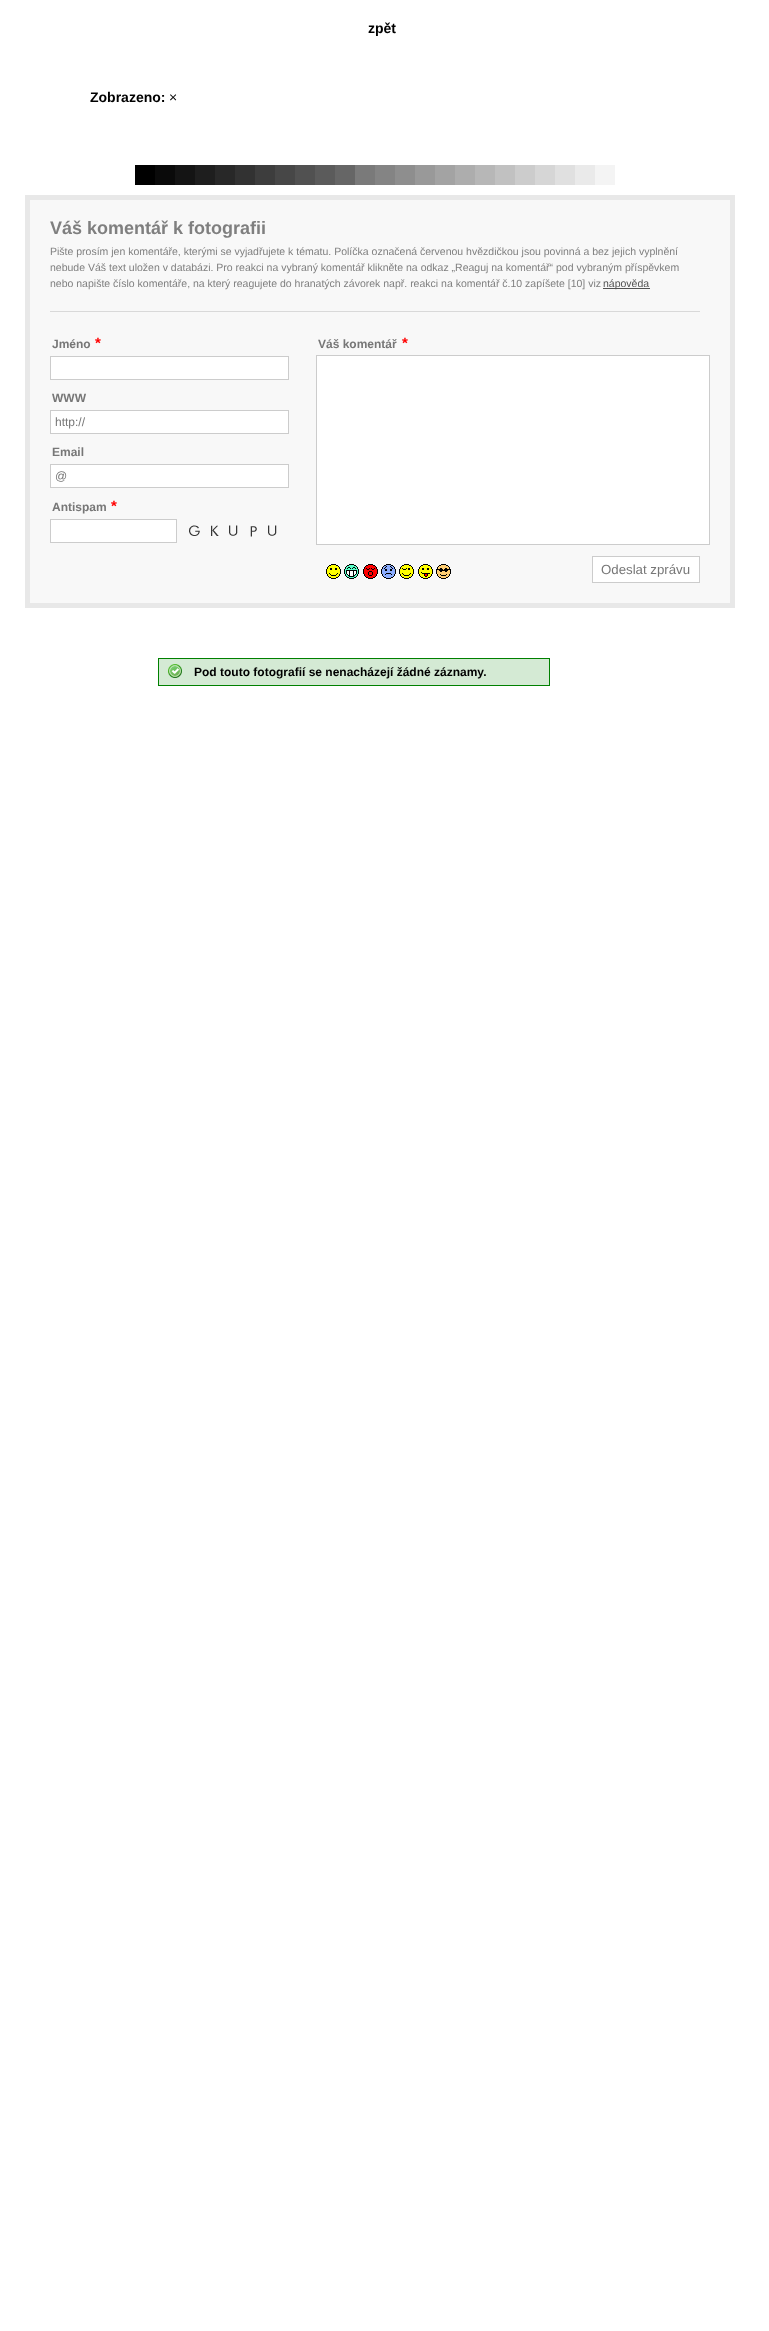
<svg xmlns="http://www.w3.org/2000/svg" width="769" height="2331">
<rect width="100%" height="100%" fill="#fff"/>
<text x="368" y="33" style="font-family:Liberation Sans;font-size:14px;font-weight:bold;fill:#000">zpět</text>
<text x="90" y="102" style="font-family:Liberation Sans;font-size:14px;font-weight:bold;fill:#000">Zobrazeno:</text>
<text x="169" y="102" style="font-family:Liberation Sans;font-size:14px;fill:#000">×</text>
<rect x="135" y="165" width="20" height="20" fill="#000"/>
<rect x="155" y="165" width="20" height="20" fill="#0a0a0a"/>
<rect x="175" y="165" width="20" height="20" fill="#141414"/>
<rect x="195" y="165" width="20" height="20" fill="#1e1e1e"/>
<rect x="215" y="165" width="20" height="20" fill="#282828"/>
<rect x="235" y="165" width="20" height="20" fill="#323232"/>
<rect x="255" y="165" width="20" height="20" fill="#3d3d3d"/>
<rect x="275" y="165" width="20" height="20" fill="#474747"/>
<rect x="295" y="165" width="20" height="20" fill="#515151"/>
<rect x="315" y="165" width="20" height="20" fill="#5b5b5b"/>
<rect x="335" y="165" width="20" height="20" fill="#666"/>
<rect x="355" y="165" width="20" height="20" fill="#7a7a7a"/>
<rect x="375" y="165" width="20" height="20" fill="#848484"/>
<rect x="395" y="165" width="20" height="20" fill="#8e8e8e"/>
<rect x="415" y="165" width="20" height="20" fill="#999"/>
<rect x="435" y="165" width="20" height="20" fill="#a3a3a3"/>
<rect x="455" y="165" width="20" height="20" fill="#adadad"/>
<rect x="475" y="165" width="20" height="20" fill="#b7b7b7"/>
<rect x="495" y="165" width="20" height="20" fill="#c1c1c1"/>
<rect x="515" y="165" width="20" height="20" fill="#ccc"/>
<rect x="535" y="165" width="20" height="20" fill="#d6d6d6"/>
<rect x="555" y="165" width="20" height="20" fill="#e0e0e0"/>
<rect x="575" y="165" width="20" height="20" fill="#eaeaea"/>
<rect x="595" y="165" width="20" height="20" fill="#f4f4f4"/>
<rect x="27.5" y="197.5" width="705" height="408" fill="#f8f8f8" stroke="#e8e8e8" stroke-width="5"/>
<text x="50" y="234" style="font-family:Liberation Sans;font-size:18px;font-weight:bold;fill:#7f7f7f">Váš komentář k fotografii</text>
<text x="50" y="255" style="font-family:Liberation Sans;font-size:10.5px;fill:#7f7f7f">Pište prosím jen komentáře, kterými se vyjadřujete k tématu. Políčka označená červenou hvězdičkou jsou povinná a bez jejich vyplnění</text>
<text x="50" y="271" style="font-family:Liberation Sans;font-size:10.5px;fill:#7f7f7f">nebude Váš text uložen v databázi. Pro reakci na vybraný komentář klikněte na odkaz „Reaguj na komentář“ pod vybraným příspěvkem</text>
<text x="50" y="287" style="font-family:Liberation Sans;font-size:10.5px;fill:#7f7f7f">nebo napište číslo komentáře, na který reagujete do hranatých závorek např. reakci na komentář č.10 zapíšete [10] viz</text>
<rect x="603" y="288" width="47" height="1" fill="#525252"/>
<text x="603" y="287" style="font-family:Liberation Sans;font-size:10.5px;fill:#525252">nápověda</text>
<rect x="50" y="311" width="650" height="1" fill="#d9d9d9"/>
<text x="52" y="348" style="font-family:Liberation Sans;font-size:12px;font-weight:bold;fill:#777">Jméno</text>
<text x="95" y="348" style="font-family:Liberation Sans;font-size:15px;font-weight:bold;fill:#f00">*</text>
<rect x="50.5" y="356.5" width="238" height="23" fill="#fff" stroke="#ccc"/>
<text x="52" y="402" style="font-family:Liberation Sans;font-size:12px;font-weight:bold;fill:#777">WWW</text>
<rect x="50.5" y="410.5" width="238" height="23" fill="#fff" stroke="#ccc"/>
<text x="55" y="426" style="font-family:Liberation Sans;font-size:12px;fill:#777">http://</text>
<text x="52" y="456" style="font-family:Liberation Sans;font-size:12px;font-weight:bold;fill:#777">Email</text>
<rect x="50.5" y="464.5" width="238" height="23" fill="#fff" stroke="#ccc"/>
<text x="55" y="480" style="font-family:Liberation Sans;font-size:12px;fill:#777">@</text>
<text x="52" y="511" style="font-family:Liberation Sans;font-size:12px;font-weight:bold;fill:#777">Antispam</text>
<text x="111" y="511" style="font-family:Liberation Sans;font-size:15px;font-weight:bold;fill:#f00">*</text>
<rect x="50.5" y="519.5" width="126" height="23" fill="#fff" stroke="#ccc"/>
<image x="189" y="525" width="11" height="11" href="media/1.png"/>
<image x="211" y="525" width="8" height="11" href="media/2.png"/>
<image x="229" y="525" width="9" height="11" href="media/3.png"/>
<image x="250" y="526" width="7" height="11" href="media/4.png"/>
<image x="268" y="525" width="9" height="11" href="media/3.png"/>
<text x="318" y="348" style="font-family:Liberation Sans;font-size:12px;font-weight:bold;fill:#777">Váš komentář</text>
<text x="402" y="348" style="font-family:Liberation Sans;font-size:15px;font-weight:bold;fill:#f00">*</text>
<rect x="316.5" y="355.5" width="393" height="189" fill="#fff" stroke="#ccc"/>
<image x="326" y="564" width="15" height="15" href="media/5.png"/>
<image x="344" y="564" width="15" height="15" href="media/6.png"/>
<image x="363" y="564" width="15" height="15" href="media/7.png"/>
<image x="381" y="564" width="15" height="15" href="media/8.png"/>
<image x="399" y="564" width="15" height="15" href="media/9.png"/>
<image x="418" y="564" width="15" height="15" href="media/10.png"/>
<image x="436" y="564" width="15" height="15" href="media/11.png"/>
<rect x="592.5" y="556.5" width="107" height="26" fill="#fff" stroke="#ccc"/>
<text x="601" y="574" style="font-family:Liberation Sans;font-size:13.25px;fill:#777">Odeslat zprávu</text>
<rect x="159" y="659" width="390" height="26" fill="#d4ead4"/>
<image x="168" y="664" width="14" height="14" href="media/12.png"/>
<rect x="158.5" y="658.5" width="391" height="27" fill="none" stroke="#008000"/>
<text x="194" y="676" style="font-family:Liberation Sans;font-size:12px;font-weight:bold;fill:#000">Pod touto fotografií se nenacházejí žádné záznamy.</text>
</svg>
